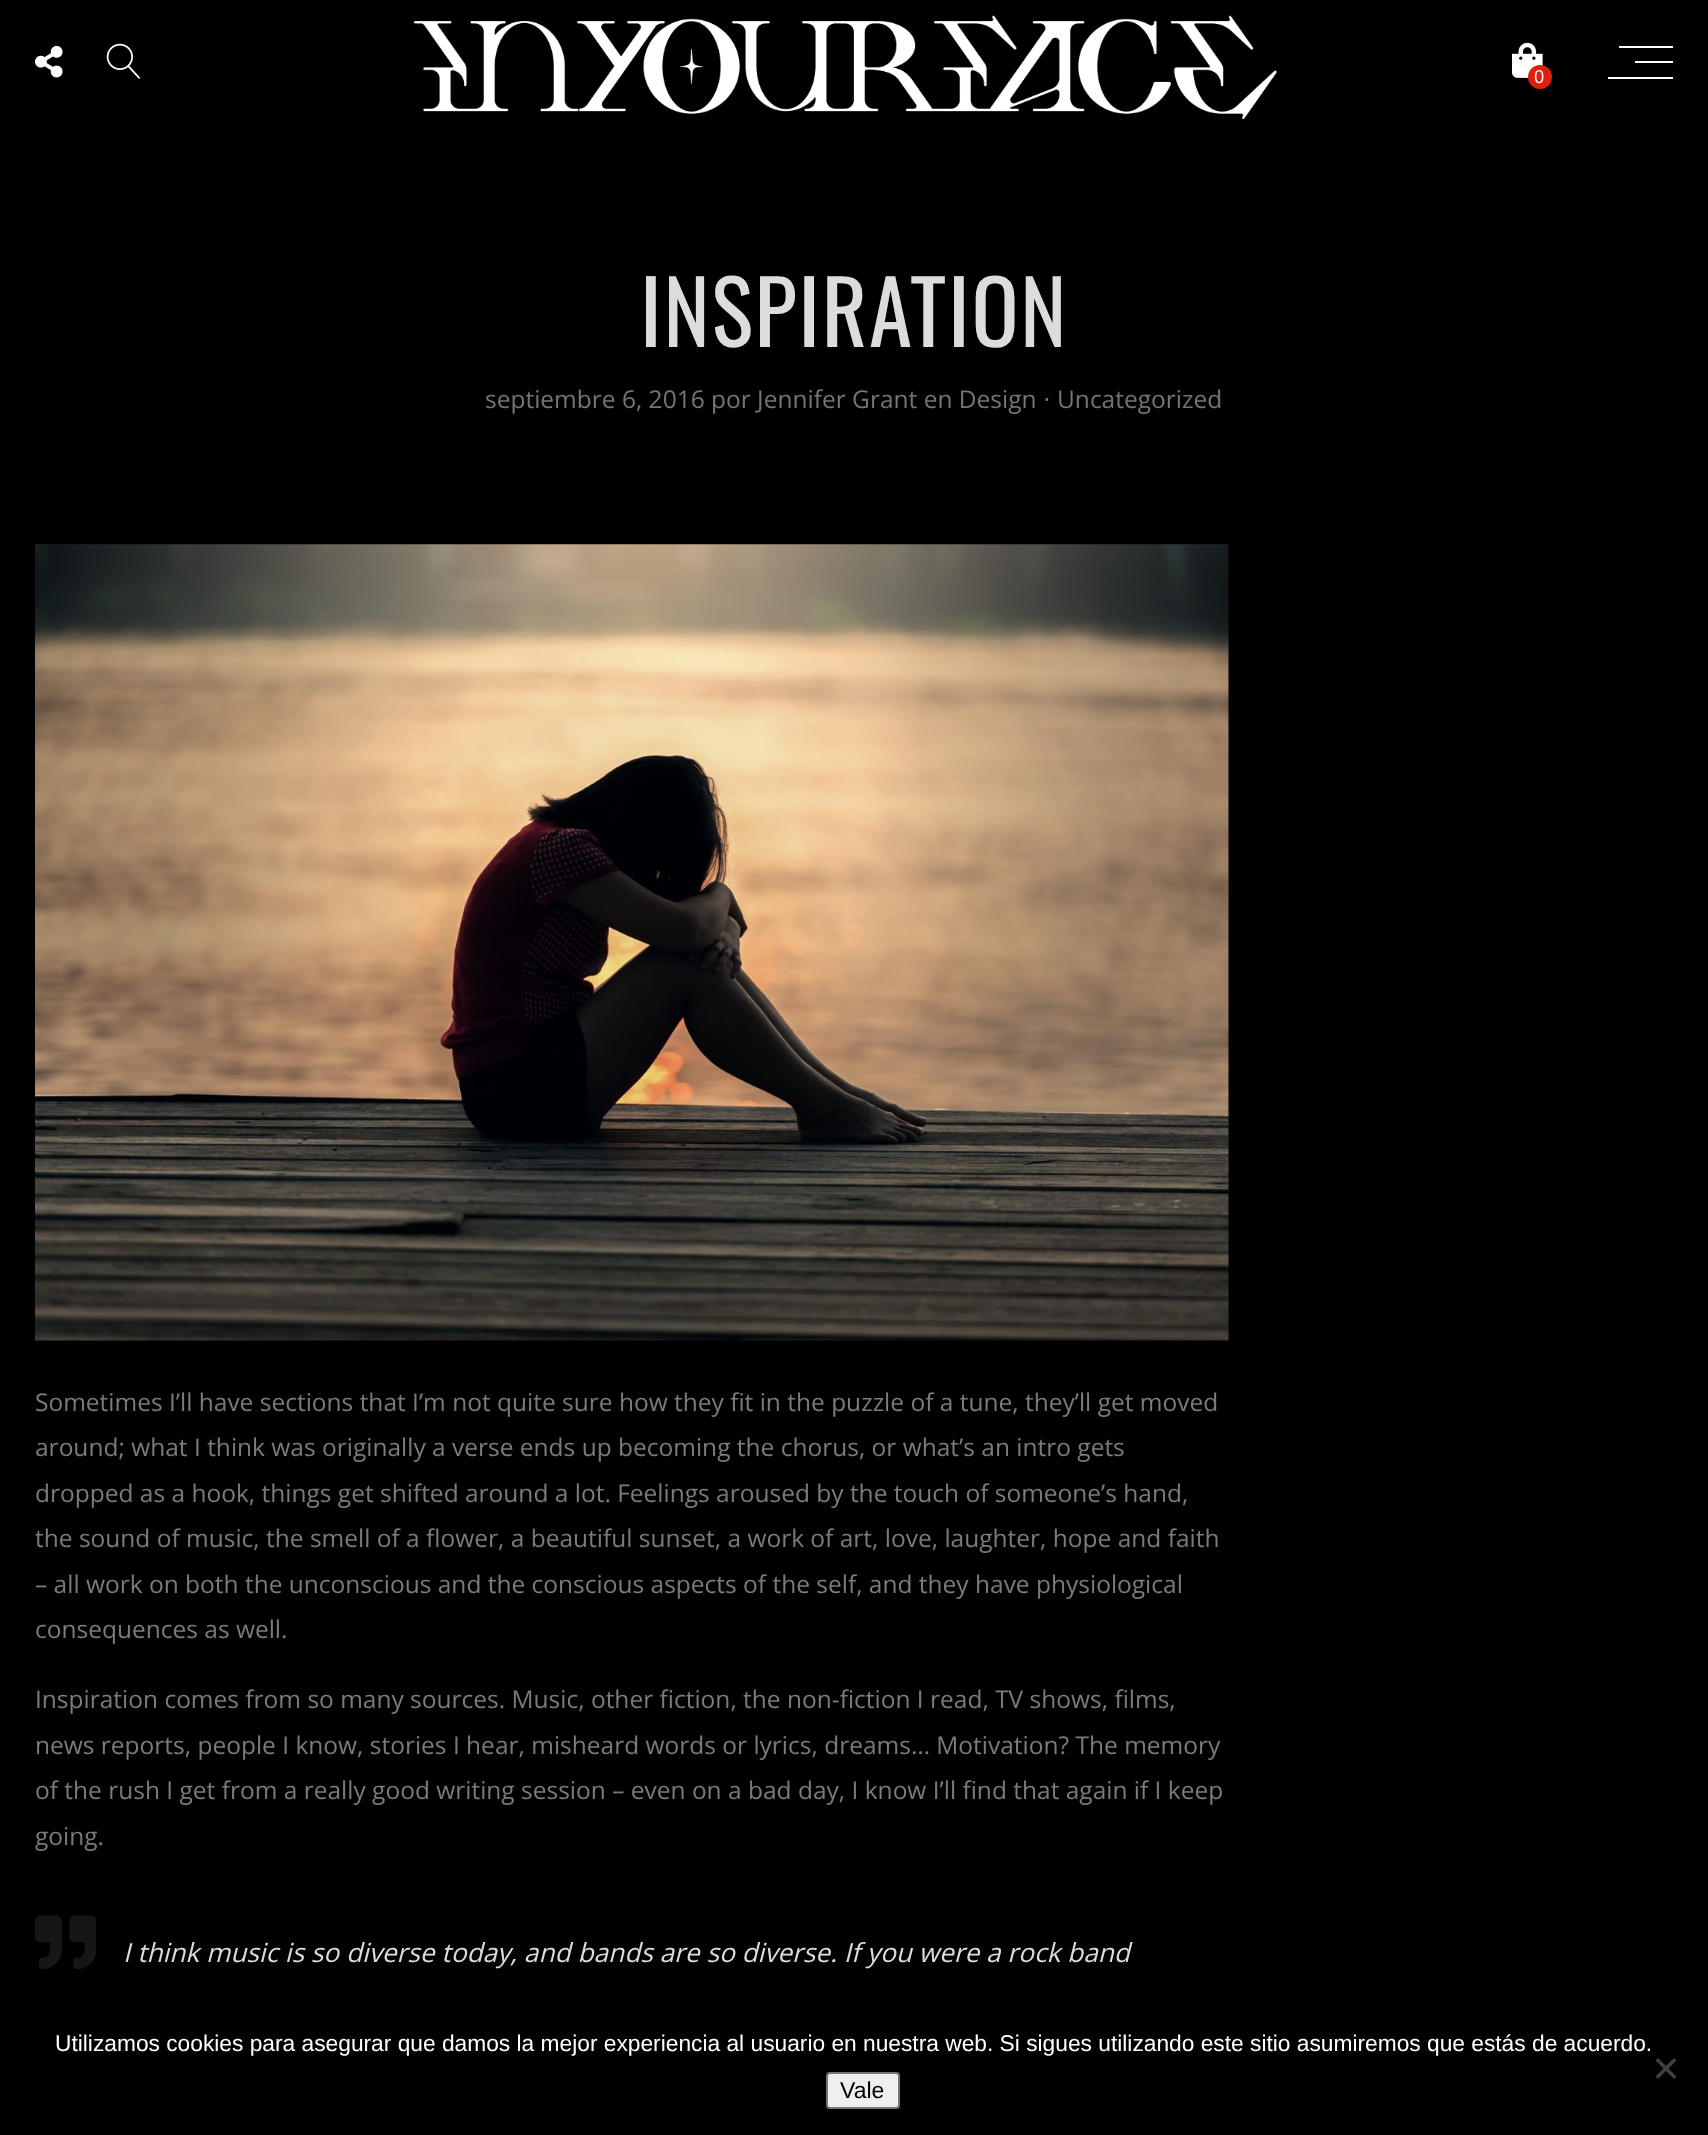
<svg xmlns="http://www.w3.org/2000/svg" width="1708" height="2135">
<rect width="100%" height="100%" fill="#000"/>
<image x="35" y="45" width="28" height="33" href="media/1.png"/>
<image x="106" y="43" width="34" height="36" href="media/2.png"/>
<image x="413" y="15" width="864" height="104" href="media/3.png"/>
<image x="1512" y="42" width="31" height="36" href="media/4.png"/>
<circle cx="1540" cy="77" r="12" fill="#dd200b"/>
<text x="1534" y="83" style="font-family:Open Sans;font-size:18px;fill:#fff">0</text>
<rect x="1619" y="46" width="54" height="2" fill="#fff"/>
<rect x="1635" y="61" width="38" height="2" fill="#fff"/>
<rect x="1608" y="77" width="65" height="2" fill="#fff"/>
<text x="640" y="347" style="font-family:Oswald;font-size:87.5px;letter-spacing:1.75px;fill:#dcdcdc">INSPIRATION</text>
<text x="485" y="408" style="font-family:Open Sans;font-size:24.5px;fill:#757575">septiembre 6, 2016 por Jennifer Grant en Design</text>
<text x="1043" y="408" style="font-family:DejaVu Sans;font-size:24.5px;fill:#757575">⋅</text>
<text x="1057" y="408" style="font-family:Open Sans;font-size:24.5px;fill:#757575">Uncategorized</text>
<image x="35" y="544" width="1194" height="797" href="media/5.png"/>
<text x="35" y="1411" style="font-family:Open Sans;font-size:24.5px;fill:#7b7b7b">Sometimes I’ll have sections that I’m not quite sure how they fit in the puzzle of a tune, they’ll get moved</text>
<text x="35" y="1456" style="font-family:Open Sans;font-size:24.5px;fill:#7b7b7b">around; what I think was originally a verse ends up becoming the chorus, or what’s an intro gets</text>
<text x="35" y="1502" style="font-family:Open Sans;font-size:24.5px;fill:#7b7b7b">dropped as a hook, things get shifted around a lot. Feelings aroused by the touch of someone’s hand,</text>
<text x="35" y="1547" style="font-family:Open Sans;font-size:24.5px;fill:#7b7b7b">the sound of music, the smell of a flower, a beautiful sunset, a work of art, love, laughter, hope and faith</text>
<text x="35" y="1593" style="font-family:Open Sans;font-size:24.5px;fill:#7b7b7b">– all work on both the unconscious and the conscious aspects of the self, and they have physiological</text>
<text x="35" y="1638" style="font-family:Open Sans;font-size:24.5px;fill:#7b7b7b">consequences as well.</text>
<text x="35" y="1708" style="font-family:Open Sans;font-size:24.5px;fill:#7b7b7b">Inspiration comes from so many sources. Music, other fiction, the non-fiction I read, TV shows, films,</text>
<text x="35" y="1754" style="font-family:Open Sans;font-size:24.5px;fill:#7b7b7b">news reports, people I know, stories I hear, misheard words or lyrics, dreams… Motivation? The memory</text>
<text x="35" y="1799" style="font-family:Open Sans;font-size:24.5px;fill:#7b7b7b">of the rush I get from a really good writing session – even on a bad day, I know I’ll find that again if I keep</text>
<text x="35" y="1845" style="font-family:Open Sans;font-size:24.5px;fill:#7b7b7b">going.</text>
<image x="35" y="1915" width="62" height="54" href="media/6.png"/>
<text x="123" y="1962" style="font-family:Open Sans;font-size:26.25px;font-style:italic;fill:#dcdcdc">I think music is so diverse today, and bands are so diverse. If you were a rock band</text>
<text x="55" y="2051" style="font-family:Liberation Sans;font-size:22.75px;fill:#fff">Utilizamos cookies para asegurar que damos la mejor experiencia al usuario en nuestra web. Si sigues utilizando este sitio asumiremos que estás de acuerdo.</text>
<path d="M1674 2058l2.5 2.5l-18.5 18.5l-2.5-2.5z" fill="#404040"/>
<path d="M1655.5 2060.5l2.5-2.5l18.5 18.5l-2.5 2.5z" fill="#404040"/>
<rect x="827" y="2073" width="72" height="35" rx="3" fill="#efefef" stroke="#767676" stroke-width="2"/>
<text x="840" y="2098" style="font-family:Liberation Sans;font-size:23px;fill:#000">Vale</text>
</svg>
